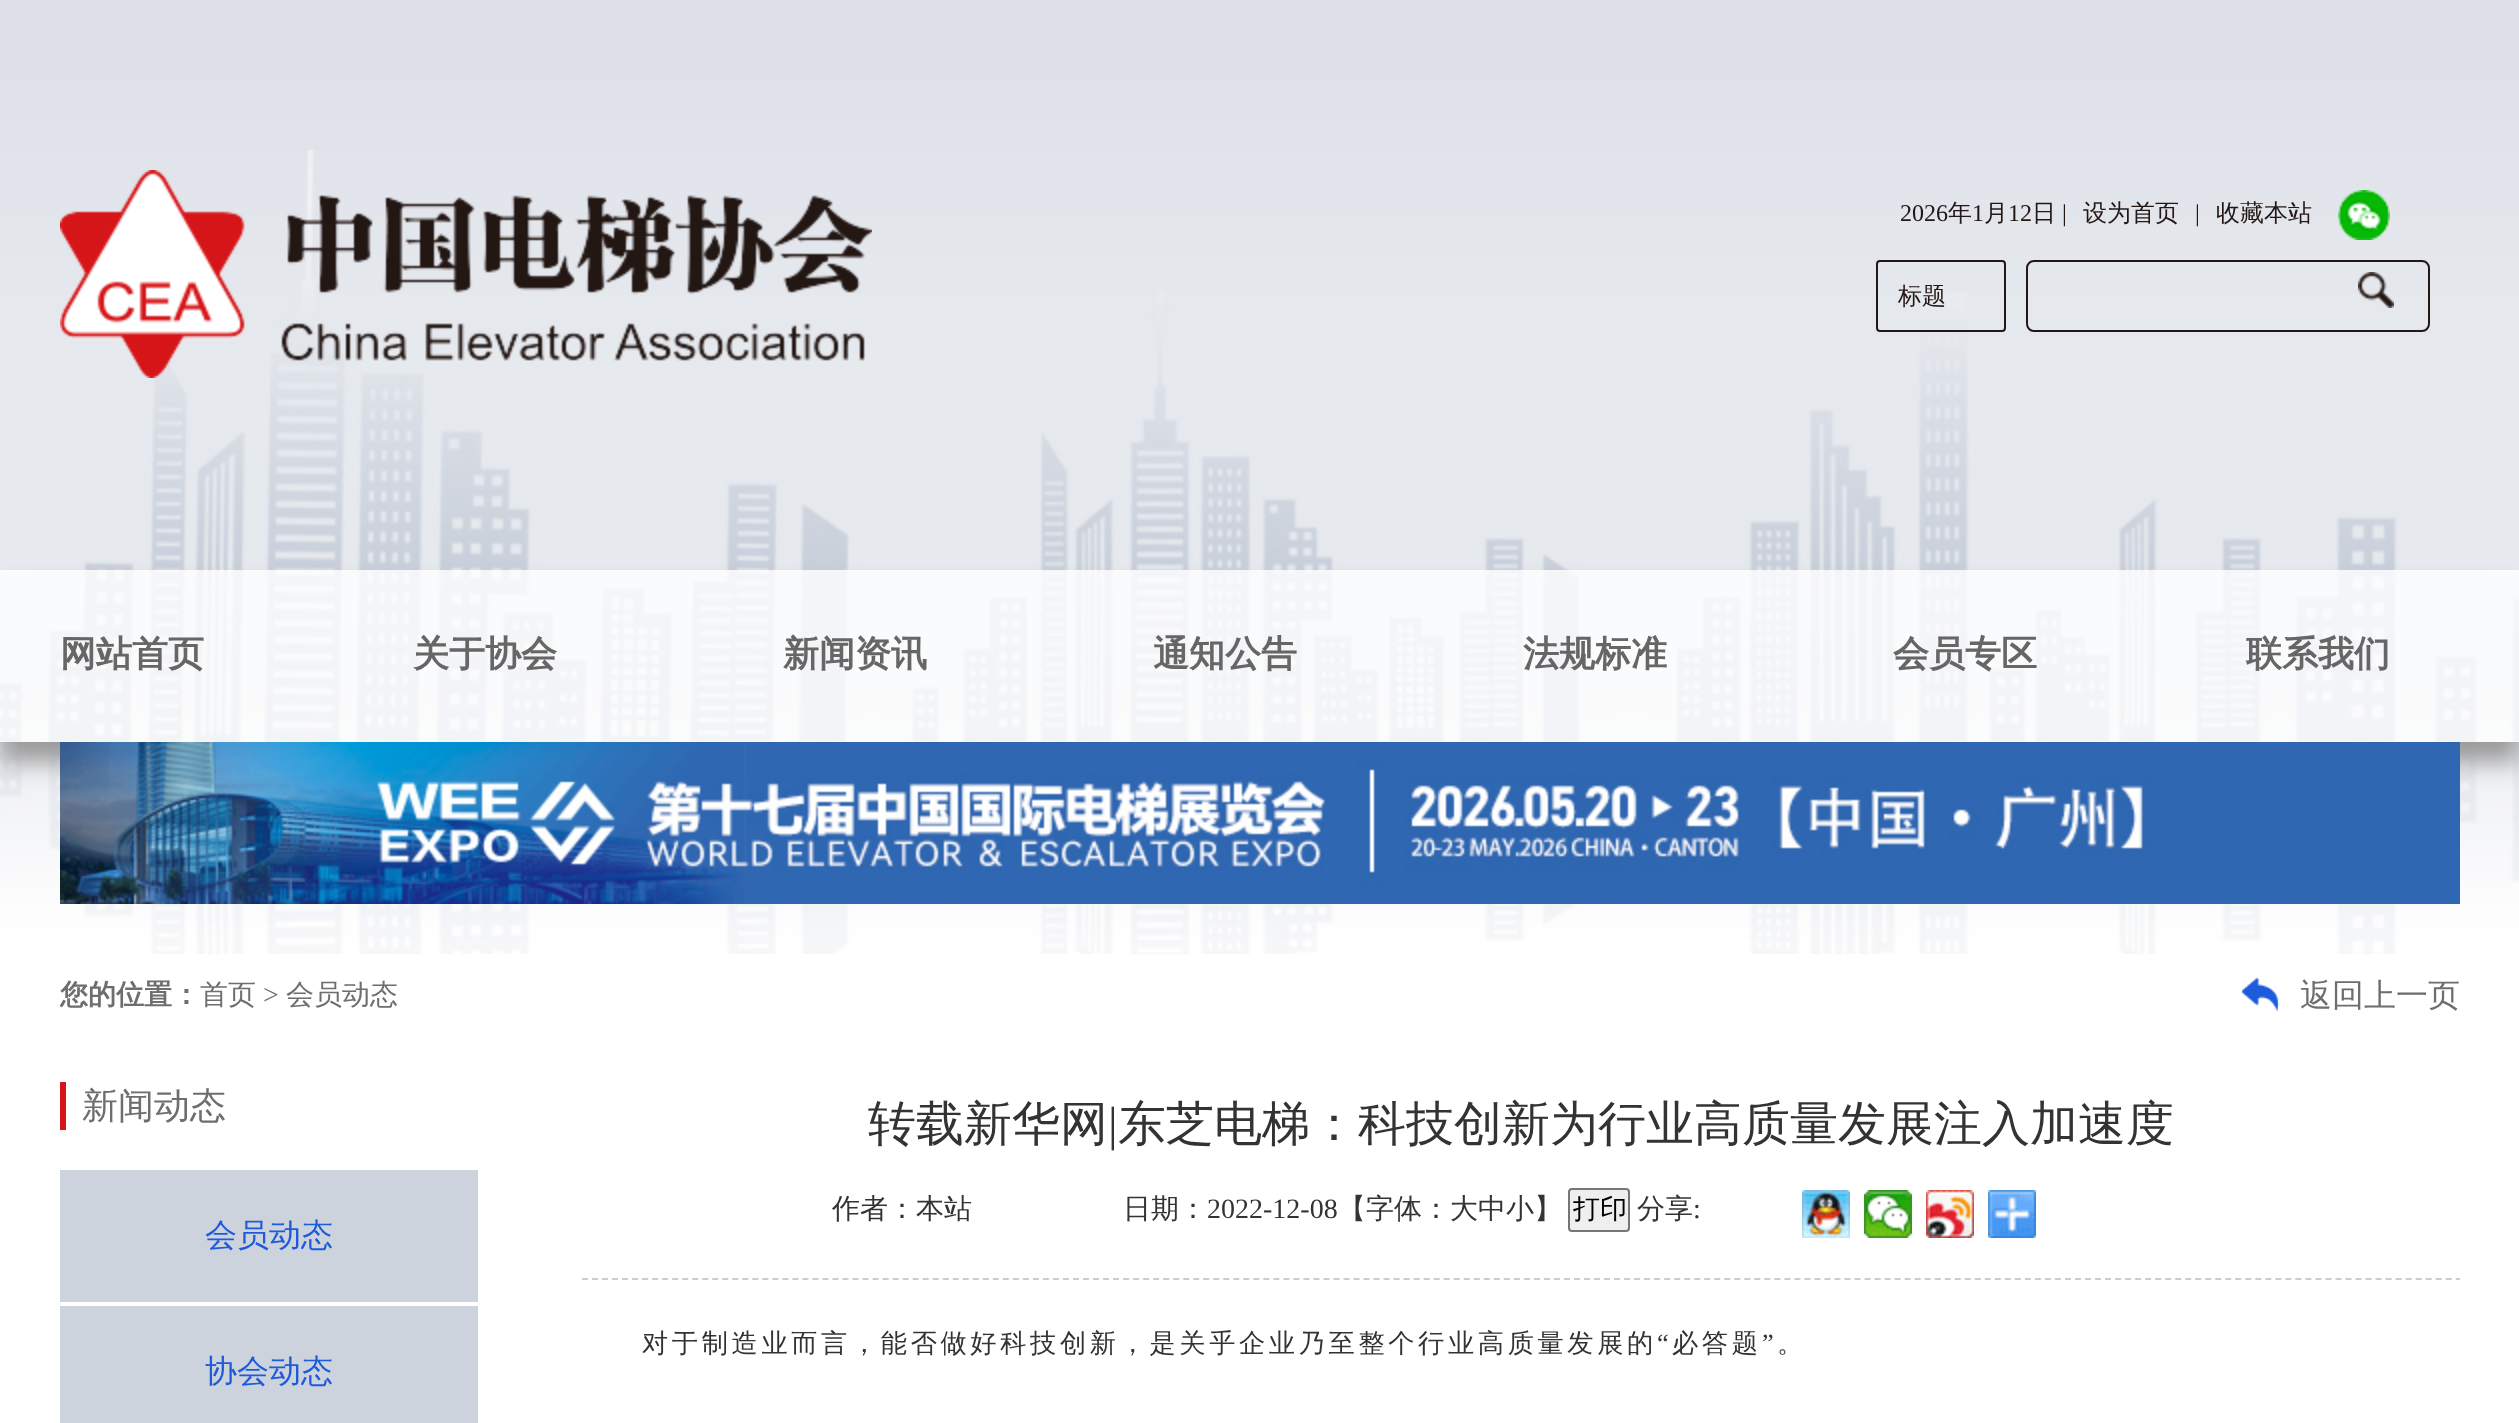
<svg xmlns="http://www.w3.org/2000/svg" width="2519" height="1423">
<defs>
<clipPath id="clip1"><path d="M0 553h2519v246h-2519zm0 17h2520v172h-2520z" clip-rule="evenodd"/></clipPath>
</defs>
<rect width="100%" height="100%" fill="#fff"/>
<image x="0" y="0" width="2519" height="994" href="media/1.png"/>
<image x="60" y="170" width="812" height="208" href="media/2.png"/>
<text x="1900" y="221" style="font-family:Liberation Serif;font-size:24px;fill:#231714">2026</text>
<text x="1948" y="221" style="font-family:WenQuanYi Zen Hei;font-size:24px;font-weight:500;fill:#231714">年</text>
<text x="1972" y="221" style="font-family:Liberation Serif;font-size:24px;fill:#231714">1</text>
<text x="1984" y="221" style="font-family:WenQuanYi Zen Hei;font-size:24px;font-weight:500;fill:#231714">月</text>
<text x="2008" y="221" style="font-family:Liberation Serif;font-size:24px;fill:#231714">12</text>
<text x="2032" y="221" style="font-family:WenQuanYi Zen Hei;font-size:24px;font-weight:500;fill:#231714">日</text>
<text x="2062" y="221" style="font-family:Liberation Serif;font-size:24px;fill:#231714">|</text>
<text x="2083" y="221" style="font-family:WenQuanYi Zen Hei;font-size:24px;font-weight:500;fill:#231714">设为首页</text>
<text x="2195" y="221" style="font-family:Liberation Serif;font-size:24px;fill:#231714">|</text>
<text x="2216" y="221" style="font-family:WenQuanYi Zen Hei;font-size:24px;font-weight:500;fill:#231714">收藏本站</text>
<image x="2338" y="190" width="52" height="50" href="media/3.png"/>
<rect x="1877" y="261" width="128" height="70" rx="3" fill="none" stroke="#231714" stroke-width="2"/>
<text x="1898" y="304" style="font-family:WenQuanYi Zen Hei;font-size:24px;font-weight:500;fill:#231714">标题</text>
<rect x="2027" y="261" width="402" height="70" rx="7" fill="none" stroke="#231714" stroke-width="2"/>
<image x="2358" y="272" width="36" height="36" href="media/4.png"/>
<g clip-path="url(#clip1)">
<rect y="590" width="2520" height="172" fill="#999" filter="blur(12px)"/>
</g>
<rect y="570" width="2519" height="172" fill="#ffffffcc"/>
<text x="60" y="666" style="font-family:WenQuanYi Zen Hei;font-size:36px;font-weight:bold;fill:#666">网站首页</text>
<text x="413" y="666" style="font-family:WenQuanYi Zen Hei;font-size:36px;font-weight:bold;fill:#666">关于协会</text>
<text x="783" y="666" style="font-family:WenQuanYi Zen Hei;font-size:36px;font-weight:bold;fill:#666">新闻资讯</text>
<text x="1153" y="666" style="font-family:WenQuanYi Zen Hei;font-size:36px;font-weight:bold;fill:#666">通知公告</text>
<text x="1523" y="666" style="font-family:WenQuanYi Zen Hei;font-size:36px;font-weight:bold;fill:#666">法规标准</text>
<text x="1893" y="666" style="font-family:WenQuanYi Zen Hei;font-size:36px;font-weight:bold;fill:#666">会员专区</text>
<text x="2246" y="666" style="font-family:WenQuanYi Zen Hei;font-size:36px;font-weight:bold;fill:#666">联系我们</text>
<image x="60" y="742" width="2400" height="162" href="media/5.png"/>
<rect x="151" y="954" width="2245" height="40" fill="#fff"/>
<text x="60" y="1004" style="font-family:WenQuanYi Zen Hei;font-size:28px;font-weight:bold;fill:#6e6e6e">您的位置：</text>
<text x="200" y="1004" style="font-family:WenQuanYi Zen Hei;font-size:28px;font-weight:500;fill:#6e6e6e">首页</text>
<text x="263" y="1004" style="font-family:Liberation Serif;font-size:28px;fill:#6e6e6e">&gt;</text>
<text x="286" y="1004" style="font-family:WenQuanYi Zen Hei;font-size:28px;font-weight:500;fill:#6e6e6e">会员动态</text>
<image x="2240" y="977" width="40" height="34" href="media/6.png"/>
<text x="2300" y="1006" style="font-family:WenQuanYi Zen Hei;font-size:32px;font-weight:500;fill:#6e6e6e">返回上一页</text>
<rect x="60" y="1082" width="6" height="48" fill="#d61518"/>
<text x="82" y="1118" style="font-family:WenQuanYi Zen Hei;font-size:36px;font-weight:500;fill:#6e6e6e">新闻动态</text>
<rect x="60" y="1170" width="418" height="132" fill="#cdd3dd"/>
<text x="205" y="1246" style="font-family:WenQuanYi Zen Hei;font-size:32px;font-weight:500;fill:#1e5bdc">会员动态</text>
<rect x="60" y="1306" width="418" height="117" fill="#cdd3dd"/>
<text x="205" y="1382" style="font-family:WenQuanYi Zen Hei;font-size:32px;font-weight:500;fill:#1e5bdc">协会动态</text>
<text x="868" y="1140" style="font-family:WenQuanYi Zen Hei;font-size:48px;font-weight:500;fill:#333">转载新华网</text>
<text x="1108" y="1140" style="font-family:Liberation Serif;font-size:48px;fill:#333">|</text>
<text x="1118" y="1140" style="font-family:WenQuanYi Zen Hei;font-size:48px;font-weight:500;fill:#333">东芝电梯：科技创新为行业高质量发展注入加速度</text>
<path d="M582 1279h1878" fill="none" stroke="#ccc" stroke-width="2" stroke-dasharray="6 4.02"/>
<text x="832" y="1218" style="font-family:WenQuanYi Zen Hei;font-size:28px;font-weight:500;fill:#333">作者：本站</text>
<text x="1123" y="1218" style="font-family:WenQuanYi Zen Hei;font-size:28px;font-weight:500;fill:#333">日期：</text>
<text x="1207" y="1218" style="font-family:Liberation Serif;font-size:28px;fill:#333">2022-12-08</text>
<text x="1338" y="1218" style="font-family:WenQuanYi Zen Hei;font-size:28px;font-weight:500;fill:#333">【字体：大中小】</text>
<rect x="1569" y="1189" width="60" height="42" rx="3" fill="#efefef" stroke="#767676" stroke-width="2"/>
<text x="1573" y="1218" style="font-family:WenQuanYi Zen Hei;font-size:27px;font-weight:500;fill:#000">打印</text>
<text x="1637" y="1218" style="font-family:WenQuanYi Zen Hei;font-size:28px;font-weight:500;fill:#333">分享</text>
<text x="1693" y="1218" style="font-family:Liberation Serif;font-size:28px;fill:#333">:</text>
<image x="1802" y="1190" width="48" height="48" href="media/7.png"/>
<image x="1864" y="1190" width="48" height="48" href="media/8.png"/>
<image x="1926" y="1190" width="48" height="48" href="media/9.png"/>
<image x="1988" y="1190" width="48" height="48" href="media/10.png"/>
<text x="642" y="1352" style="font-family:WenQuanYi Zen Hei;font-size:26.25px;font-weight:500;letter-spacing:3.6px;fill:#333">对于制造业而言，能否做好科技创新，是关乎企业乃至整个行业高质量发展的</text>
<text x="1657" y="1352" style="font-family:Liberation Serif;font-size:26.25px;letter-spacing:3.6px;fill:#333">“</text>
<text x="1672" y="1352" style="font-family:WenQuanYi Zen Hei;font-size:26.25px;font-weight:500;letter-spacing:3.6px;fill:#333">必答题</text>
<text x="1762" y="1352" style="font-family:Liberation Serif;font-size:26.25px;letter-spacing:3.6px;fill:#333">”</text>
<text x="1777" y="1352" style="font-family:WenQuanYi Zen Hei;font-size:26.25px;font-weight:500;letter-spacing:3.6px;fill:#333">。</text>
</svg>
